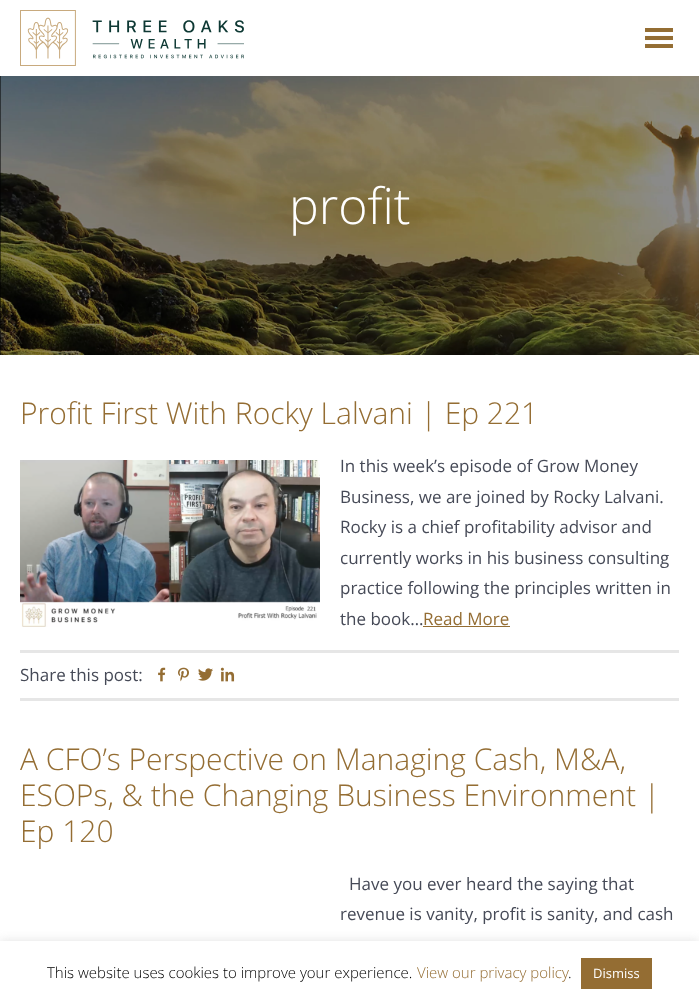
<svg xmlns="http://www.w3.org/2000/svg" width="699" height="1001">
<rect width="100%" height="100%" fill="#fff"/>
<image x="20" y="10" width="224" height="56" href="media/1.png"/>
<image x="645" y="28" width="28" height="20" href="media/2.png"/>
<rect y="76" width="1" height="279" fill="#000"/>
<image x="0" y="76" width="699" height="279" href="media/3.png"/>
<text x="289" y="224" style="font-family:Open Sans;font-size:50px;font-weight:300;fill:#fff">profit</text>
<text x="20" y="424" style="font-family:Open Sans;font-size:30px;font-weight:300;fill:#946d33">Profit First With Rocky Lalvani | Ep 221</text>
<image x="20" y="460" width="300" height="167" href="media/4.png"/>
<text x="340" y="472" style="font-family:Open Sans;font-size:17px;fill:#464a57">In this week’s episode of Grow Money</text>
<text x="340" y="503" style="font-family:Open Sans;font-size:17px;fill:#464a57">Business, we are joined by Rocky Lalvani.</text>
<text x="340" y="533" style="font-family:Open Sans;font-size:17px;fill:#464a57">Rocky is a chief profitability advisor and</text>
<text x="340" y="564" style="font-family:Open Sans;font-size:17px;fill:#464a57">currently works in his business consulting</text>
<text x="340" y="594" style="font-family:Open Sans;font-size:17px;fill:#464a57">practice following the principles written in</text>
<text x="340" y="625" style="font-family:Open Sans;font-size:17px;fill:#464a57">the book…</text>
<text x="423" y="625" style="font-family:Open Sans;font-size:17px;fill:#946d33">Read More</text>
<rect x="423" y="626" width="87" height="1" fill="#946d33"/>
<rect x="20" y="650" width="659" height="3" fill="#e6e6e6"/>
<rect x="20" y="698" width="659" height="3" fill="#e6e6e6"/>
<text x="20" y="681" style="font-family:Open Sans;font-size:17px;fill:#464a57">Share this post:</text>
<image x="158" y="667" width="8" height="15" href="media/5.png"/>
<image x="178" y="667" width="11" height="15" href="media/6.png"/>
<image x="198" y="668" width="15" height="13" href="media/7.png"/>
<image x="220" y="667" width="15" height="15" href="media/8.png"/>
<text x="20" y="770" style="font-family:Open Sans;font-size:30px;font-weight:300;fill:#946d33">A CFO’s Perspective on Managing Cash, M&amp;A,</text>
<text x="20" y="806" style="font-family:Open Sans;font-size:30px;font-weight:300;fill:#946d33">ESOPs, &amp; the Changing Business Environment |</text>
<text x="20" y="842" style="font-family:Open Sans;font-size:30px;font-weight:300;fill:#946d33">Ep 120</text>
<text x="349" y="890" style="font-family:Open Sans;font-size:17px;fill:#464a57">Have you ever heard the saying that</text>
<text x="340" y="920" style="font-family:Open Sans;font-size:17px;fill:#464a57">revenue is vanity, profit is sanity, and cash</text>
<rect y="940" width="699" height="60" fill="#acabab4d" filter="blur(5px)"/>
<rect y="941" width="699" height="60" fill="#fff"/>
<text x="47" y="978" style="font-family:Open Sans;font-size:15px;font-weight:300;fill:#000">This website uses cookies to improve your experience.</text>
<text x="417" y="978" style="font-family:Open Sans;font-size:15px;font-weight:300;fill:#946d33">View our privacy policy</text>
<text x="568" y="978" style="font-family:Open Sans;font-size:15px;font-weight:300;fill:#000">.</text>
<rect x="581" y="958" width="71" height="31" fill="#946d33"/>
<text x="593" y="978" style="font-family:Open Sans;font-size:13px;fill:#fff">Dismiss</text>
</svg>
